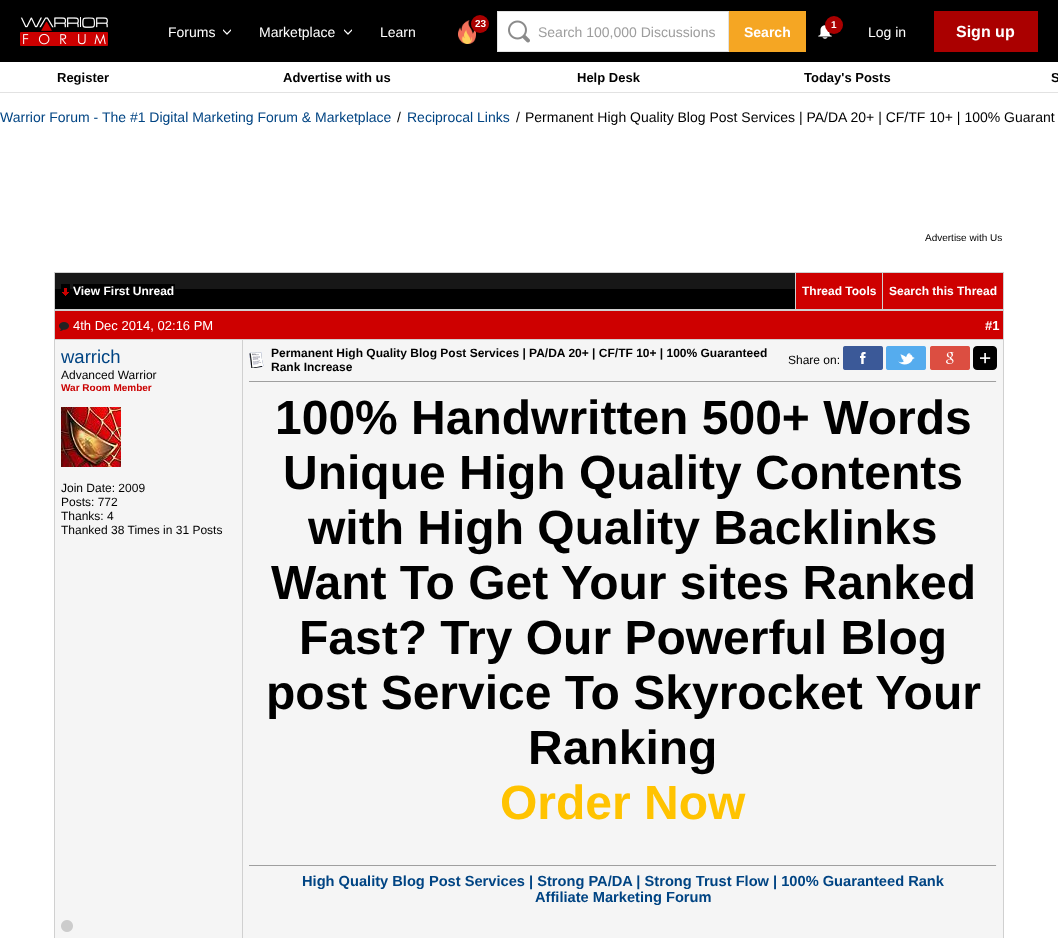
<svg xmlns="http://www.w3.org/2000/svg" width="1058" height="938">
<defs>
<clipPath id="clip1"><rect x="223" y="20" width="8" height="24"/></clipPath>
<clipPath id="clip2"><rect x="344" y="20" width="8" height="24"/></clipPath>
</defs>
<rect width="100%" height="100%" fill="#fff"/>
<rect width="1058" height="62" fill="#000"/>
<image x="20" y="17" width="88" height="29" href="media/1.png"/>
<image x="458" y="20" width="18" height="24" href="media/2.png"/>
<circle cx="480" cy="24" r="9" fill="#a00"/>
<text x="475" y="27" style="font-family:Liberation Sans;font-size:10px;font-weight:bold;fill:#fff">23</text>
<text x="168" y="37" style="font-family:Liberation Sans;font-size:14px;fill:#fff">Forums</text>
<g clip-path="url(#clip1)">
<path d="M223 30l4 4l4-4" fill="none" stroke="#fff" stroke-width="1.2" stroke-linecap="round" stroke-linejoin="round"/>
</g>
<text x="259" y="37" style="font-family:Liberation Sans;font-size:14px;fill:#fff">Marketplace</text>
<g clip-path="url(#clip2)">
<path d="M344 30l4 4l4-4" fill="none" stroke="#fff" stroke-width="1.2" stroke-linecap="round" stroke-linejoin="round"/>
</g>
<text x="380" y="37" style="font-family:Liberation Sans;font-size:14px;fill:#fff">Learn</text>
<rect x="498" y="12" width="230" height="39" fill="#fff"/>
<image x="508" y="20" width="22" height="23" href="media/3.png"/>
<rect x="497.5" y="11.5" width="231" height="40" fill="none" stroke="#e2e2e2"/>
<text x="538" y="37" style="font-family:Liberation Sans;font-size:14px;fill:#9d9d9d">Search 100,000 Discussions</text>
<rect x="729" y="11" width="77" height="41" fill="#f5a623"/>
<text x="744" y="37" style="font-family:Liberation Sans;font-size:14px;font-weight:bold;fill:#fff">Search</text>
<image x="818" y="25" width="14" height="14" href="media/4.png"/>
<circle cx="834" cy="25" r="9" fill="#a00"/>
<text x="831" y="28" style="font-family:Liberation Sans;font-size:10px;font-weight:bold;fill:#fff">1</text>
<text x="868" y="37" style="font-family:Liberation Sans;font-size:14px;fill:#fff">Log in</text>
<rect x="934" y="11" width="104" height="41" fill="#a00"/>
<text x="956" y="37" style="font-family:Liberation Sans;font-size:16px;font-weight:bold;fill:#fff">Sign up</text>
<rect y="92" width="1058" height="1" fill="#e2e2e2"/>
<text x="57" y="82" style="font-family:Liberation Sans;font-size:13px;font-weight:bold;fill:#000">Register</text>
<text x="283" y="82" style="font-family:Liberation Sans;font-size:13px;font-weight:bold;fill:#000">Advertise with us</text>
<text x="577" y="82" style="font-family:Liberation Sans;font-size:13px;font-weight:bold;fill:#000">Help Desk</text>
<text x="804" y="82" style="font-family:Liberation Sans;font-size:13px;font-weight:bold;fill:#000">Today's Posts</text>
<text x="1051" y="82" style="font-family:Liberation Sans;font-size:13px;font-weight:bold;fill:#000">S</text>
<text x="0" y="122" style="font-family:Liberation Sans;font-size:14px;fill:#004483">Warrior Forum - The #1 Digital Marketing Forum &amp; Marketplace</text>
<text x="397" y="122" style="font-family:Liberation Sans;font-size:14px;fill:#000">/</text>
<text x="407" y="122" style="font-family:Liberation Sans;font-size:14px;fill:#004483">Reciprocal Links</text>
<text x="516" y="122" style="font-family:Liberation Sans;font-size:14px;fill:#000">/</text>
<text x="525" y="122" style="font-family:Liberation Sans;font-size:14px;fill:#000">Permanent High Quality Blog Post Services | PA/DA 20+ | CF/TF 10+ | 100% Guarant</text>
<text x="925" y="241" style="font-family:Liberation Sans;font-size:10px;fill:#000">Advertise with Us</text>
<rect x="54" y="272" width="950" height="38" fill="#d0d0d0"/>
<rect x="55" y="289" width="740" height="20" fill="#000"/>
<rect x="55" y="273" width="740" height="16" fill="#171717"/>
<rect x="61" y="284" width="9" height="5" fill="#000"/>
<rect x="73" y="284" width="102" height="5" fill="#000"/>
<text x="73" y="295" style="font-family:Liberation Sans;font-size:12px;font-weight:bold;fill:#fff">View First Unread</text>
<image x="62" y="288" width="7" height="8" href="media/5.png"/>
<rect x="796" y="273" width="86" height="36" fill="#ce0000"/>
<text x="802" y="295" style="font-family:Liberation Sans;font-size:12px;font-weight:bold;fill:#fff">Thread Tools</text>
<rect x="883" y="273" width="120" height="36" fill="#ce0000"/>
<text x="889" y="295" style="font-family:Liberation Sans;font-size:12px;font-weight:bold;fill:#fff">Search this Thread</text>
<rect x="55" y="311" width="948" height="28" fill="#ce0000"/>
<rect x="54" y="310" width="950" height="1" fill="#d0d0d0"/>
<rect x="54" y="339" width="189" height="1" fill="#d0d0d0"/>
<rect x="54" y="310" width="1" height="628" fill="#d0d0d0"/>
<image x="59" y="322" width="10" height="9" href="media/6.png"/>
<text x="73" y="330" style="font-family:Liberation Sans;font-size:13px;fill:#fff">4th Dec 2014, 02:16 PM</text>
<rect x="1003" y="310" width="1" height="628" fill="#d0d0d0"/>
<rect x="243" y="339" width="761" height="1" fill="#d0d0d0"/>
<text x="985" y="330" style="font-family:Liberation Sans;font-size:13px;font-weight:bold;fill:#fff">#1</text>
<rect x="55" y="340" width="187" height="598" fill="#f5f5f5"/>
<rect x="242" y="340" width="1" height="598" fill="#d0d0d0"/>
<text x="61" y="363" style="font-family:Liberation Sans;font-size:18.5px;fill:#004483">warrich</text>
<text x="61" y="379" style="font-family:Liberation Sans;font-size:12px;fill:#000">Advanced Warrior</text>
<text x="61" y="391" style="font-family:Liberation Sans;font-size:10px;font-weight:bold;fill:#ca0000">War Room Member</text>
<image x="61" y="407" width="60" height="60" href="media/7.png"/>
<text x="61" y="492" style="font-family:Liberation Sans;font-size:12px;fill:#000">Join Date: 2009</text>
<text x="61" y="506" style="font-family:Liberation Sans;font-size:12px;fill:#000">Posts: 772</text>
<text x="61" y="520" style="font-family:Liberation Sans;font-size:12px;fill:#000">Thanks: 4</text>
<text x="61" y="534" style="font-family:Liberation Sans;font-size:12px;fill:#000">Thanked 38 Times in 31 Posts</text>
<rect x="243" y="340" width="760" height="598" fill="#f5f5f5"/>
<image x="249" y="352" width="15" height="16" href="media/8.png"/>
<text x="271" y="357" style="font-family:Liberation Sans;font-size:12px;font-weight:bold;fill:#000">Permanent High Quality Blog Post Services | PA/DA 20+ | CF/TF 10+ | 100% Guaranteed</text>
<text x="271" y="371" style="font-family:Liberation Sans;font-size:12px;font-weight:bold;fill:#000">Rank Increase</text>
<text x="788" y="364" style="font-family:Liberation Sans;font-size:12px;fill:#000">Share on:</text>
<image x="843" y="346" width="40" height="24" href="media/9.png"/>
<image x="886" y="346" width="40" height="24" href="media/10.png"/>
<image x="930" y="346" width="40" height="24" href="media/11.png"/>
<image x="973" y="346" width="24" height="24" href="media/12.png"/>
<rect x="249" y="381" width="748" height="1" fill="#9f9f9f"/>
<rect x="996" y="381" width="1" height="1" fill="#eee"/>
<text x="275" y="434" style="font-family:Liberation Sans;font-size:48px;font-weight:bold;fill:#000">100% Handwritten 500+ Words</text>
<text x="283" y="489" style="font-family:Liberation Sans;font-size:48px;font-weight:bold;fill:#000">Unique High Quality Contents</text>
<text x="308" y="544" style="font-family:Liberation Sans;font-size:48px;font-weight:bold;fill:#000">with High Quality Backlinks</text>
<text x="271" y="599" style="font-family:Liberation Sans;font-size:48px;font-weight:bold;fill:#000">Want To Get Your sites Ranked</text>
<text x="299" y="654" style="font-family:Liberation Sans;font-size:48px;font-weight:bold;fill:#000">Fast? Try Our Powerful Blog</text>
<text x="266" y="709" style="font-family:Liberation Sans;font-size:48px;font-weight:bold;fill:#000">post Service To Skyrocket Your</text>
<text x="528" y="764" style="font-family:Liberation Sans;font-size:48px;font-weight:bold;fill:#000">Ranking</text>
<text x="500" y="819" style="font-family:Liberation Sans;font-size:48px;font-weight:bold;fill:#ffc300">Order Now</text>
<rect x="249" y="865" width="748" height="1" fill="#9f9f9f"/>
<rect x="996" y="865" width="1" height="1" fill="#eee"/>
<text x="302" y="886" style="font-family:Liberation Sans;font-size:14.65px;font-weight:bold;fill:#004483">High Quality Blog Post Services | Strong PA/DA | Strong Trust Flow | 100% Guaranteed Rank</text>
<text x="535" y="902" style="font-family:Liberation Sans;font-size:14.65px;font-weight:bold;fill:#004483">Affiliate Marketing Forum</text>
<image x="61" y="920" width="12" height="12" href="media/13.png"/>
</svg>
